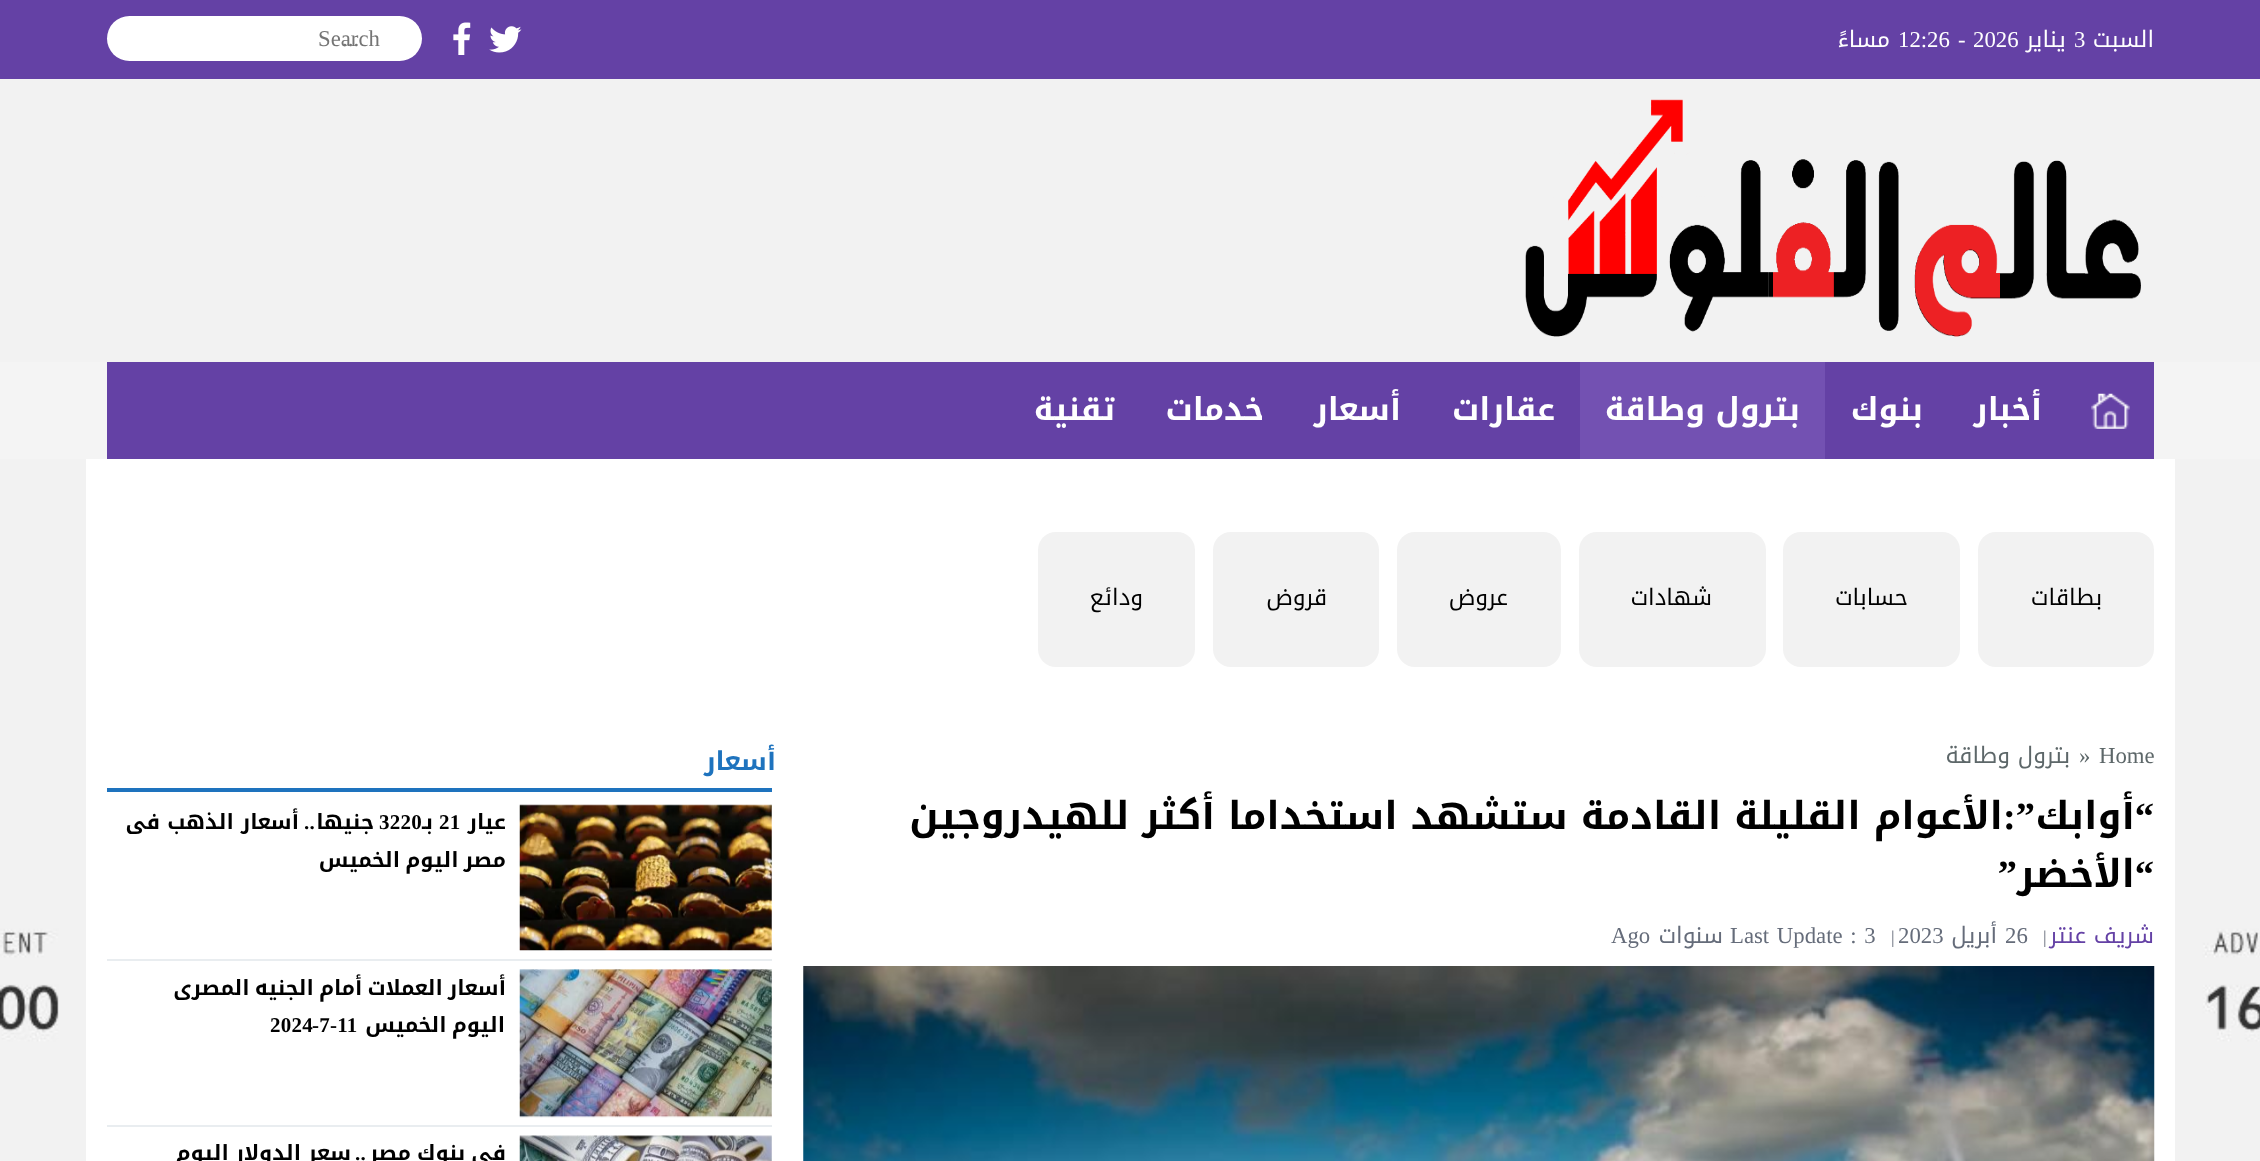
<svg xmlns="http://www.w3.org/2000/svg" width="2260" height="1161">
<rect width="100%" height="100%" fill="#fff"/>
<rect width="2260" height="79" fill="#6441a5"/>
<text x="2154" y="47" style="font-family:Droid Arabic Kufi;font-size:22.75px;direction:rtl;fill:#fff">السبت</text>
<text x="2074" y="47" style="font-family:Liberation Serif;font-size:22.75px;fill:#fff">3</text>
<text x="2066" y="47" style="font-family:Droid Arabic Kufi;font-size:22.75px;direction:rtl;fill:#fff">يناير</text>
<text x="1973" y="47" style="font-family:Liberation Serif;font-size:22.75px;fill:#fff">2026</text>
<text x="1958" y="47" style="font-family:Liberation Serif;font-size:22.75px;fill:#fff">-</text>
<text x="1898" y="47" style="font-family:Liberation Serif;font-size:22.75px;fill:#fff">12:26</text>
<text x="1890" y="47" style="font-family:Droid Arabic Kufi;font-size:22.75px;direction:rtl;fill:#fff">مساءً</text>
<image x="489" y="26" width="33" height="27" href="media/1.png"/>
<image x="453" y="22" width="18" height="33" href="media/2.png"/>
<rect x="107" y="16" width="315" height="45" rx="22.5" fill="#fff"/>
<text x="318" y="46" style="font-family:Liberation Serif;font-size:22.75px;fill:#757575">Search</text>
<text x="342" y="46" style="font-family:Liberation Serif;font-size:22.75px;fill:#757575">...</text>
<rect y="79" width="2260" height="283" fill="#f2f2f2"/>
<image x="1525" y="99" width="616" height="238" href="media/3.png"/>
<rect y="362" width="2260" height="97" fill="#f4f4f4"/>
<rect x="107" y="362" width="2047" height="97" fill="#6441a5"/>
<image x="2091" y="393" width="39" height="36" href="media/4.png"/>
<text x="2042" y="420" style="font-family:Droid Arabic Kufi;font-size:31.5px;font-weight:bold;direction:rtl;fill:#fff">أخبار</text>
<text x="1923" y="420" style="font-family:Droid Arabic Kufi;font-size:31.5px;font-weight:bold;direction:rtl;fill:#fff">بنوك</text>
<rect x="1580" y="362" width="245" height="97" fill="#7351b2"/>
<text x="1800" y="420" style="font-family:Droid Arabic Kufi;font-size:31.5px;font-weight:bold;direction:rtl;fill:#fff">بترول وطاقة</text>
<text x="1555" y="420" style="font-family:Droid Arabic Kufi;font-size:31.5px;font-weight:bold;direction:rtl;fill:#fff">عقارات</text>
<text x="1401" y="420" style="font-family:Droid Arabic Kufi;font-size:31.5px;font-weight:bold;direction:rtl;fill:#fff">أسعار</text>
<text x="1264" y="420" style="font-family:Droid Arabic Kufi;font-size:31.5px;font-weight:bold;direction:rtl;fill:#fff">خدمات</text>
<text x="1115" y="420" style="font-family:Droid Arabic Kufi;font-size:31.5px;font-weight:bold;direction:rtl;fill:#fff">تقنية</text>
<image x="2175" y="459" width="85" height="702" href="media/5.png"/>
<rect x="1978" y="532" width="176" height="135" rx="18" fill="#f2f2f2"/>
<text x="2102" y="605" style="font-family:Droid Arabic Kufi;font-size:22.75px;direction:rtl;fill:#000">بطاقات</text>
<rect x="1783" y="532" width="177" height="135" rx="18" fill="#f2f2f2"/>
<text x="1908" y="605" style="font-family:Droid Arabic Kufi;font-size:22.75px;direction:rtl;fill:#000">حسابات</text>
<rect x="1579" y="532" width="187" height="135" rx="18" fill="#f2f2f2"/>
<text x="1712" y="605" style="font-family:Droid Arabic Kufi;font-size:22.75px;direction:rtl;fill:#000">شهادات</text>
<rect x="1397" y="532" width="164" height="135" rx="18" fill="#f2f2f2"/>
<text x="1508" y="605" style="font-family:Droid Arabic Kufi;font-size:22.75px;direction:rtl;fill:#000">عروض</text>
<rect x="1213" y="532" width="166" height="135" rx="18" fill="#f2f2f2"/>
<text x="1327" y="605" style="font-family:Droid Arabic Kufi;font-size:22.75px;direction:rtl;fill:#000">قروض</text>
<rect x="1038" y="532" width="157" height="135" rx="18" fill="#f2f2f2"/>
<text x="1143" y="605" style="font-family:Droid Arabic Kufi;font-size:22.75px;direction:rtl;fill:#000">ودائع</text>
<image x="0" y="459" width="86" height="702" href="media/6.png"/>
<text x="2099" y="763" style="font-family:Liberation Serif;font-size:22.75px;fill:#5d6769">Home</text>
<text x="2079" y="763" style="font-family:Liberation Serif;font-size:22.75px;fill:#5d6769">»</text>
<text x="2070" y="763" style="font-family:Droid Arabic Kufi;font-size:22.75px;direction:rtl;fill:#5d6769">بترول وطاقة</text>
<text x="2154" y="829" style="font-family:Liberation Serif;font-size:38.5px;font-weight:bold;direction:rtl;fill:#000">“</text>
<text x="2135" y="829" style="font-family:Droid Arabic Kufi;font-size:38.5px;font-weight:bold;direction:rtl;fill:#000">أوابك</text>
<text x="2035" y="829" style="font-family:Liberation Serif;font-size:38.5px;font-weight:bold;direction:rtl;fill:#000">”:</text>
<text x="2003" y="829" style="font-family:Droid Arabic Kufi;font-size:38.5px;font-weight:bold;direction:rtl;fill:#000">الأعوام القليلة القادمة ستشهد استخداما أكثر للهيدروجين</text>
<text x="2154" y="887" style="font-family:Liberation Serif;font-size:38.5px;font-weight:bold;direction:rtl;fill:#000">“</text>
<text x="2017" y="887" style="font-family:Liberation Serif;font-size:38.5px;font-weight:bold;direction:rtl;fill:#000">”</text>
<text x="2135" y="887" style="font-family:Droid Arabic Kufi;font-size:38.5px;font-weight:bold;direction:rtl;fill:#000">الأخضر</text>
<text x="2154" y="943" style="font-family:Droid Arabic Kufi;font-size:22.75px;direction:rtl;fill:#6441a5">شريف عنتر</text>
<text x="2043" y="943" style="font-family:Liberation Serif;font-size:18px;fill:#656c7a">|</text>
<text x="2005" y="943" style="font-family:Liberation Serif;font-size:22.75px;fill:#656c7a">26</text>
<text x="1997" y="943" style="font-family:Droid Arabic Kufi;font-size:22.75px;direction:rtl;fill:#656c7a">أبريل</text>
<text x="1898" y="943" style="font-family:Liberation Serif;font-size:22.75px;fill:#656c7a">2023</text>
<text x="1891" y="943" style="font-family:Liberation Serif;font-size:18px;fill:#656c7a">|</text>
<text x="1730" y="943" word-spacing="2" style="font-family:Liberation Serif;font-size:22.75px;fill:#656c7a">Last Update : 3</text>
<text x="1723" y="943" style="font-family:Droid Arabic Kufi;font-size:22.75px;direction:rtl;fill:#656c7a">سنوات</text>
<text x="1611" y="943" style="font-family:Liberation Serif;font-size:22.75px;fill:#656c7a">Ago</text>
<image x="803" y="966" width="1352" height="195" href="media/7.png"/>
<rect x="107" y="788" width="665" height="4" fill="#1e73be"/>
<text x="776" y="770" style="font-family:Droid Arabic Kufi;font-size:26px;font-weight:bold;letter-spacing:1px;direction:rtl;fill:#1e73be">أسعار</text>
<rect x="107" y="959" width="665" height="2" fill="#e9edf0"/>
<image x="519" y="804" width="253" height="147" href="media/8.png"/>
<text x="506" y="829" style="font-family:Droid Arabic Kufi;font-size:21px;font-weight:bold;letter-spacing:0.25px;direction:rtl;fill:#000">عيار</text>
<text x="439" y="829" style="font-family:Liberation Serif;font-size:21px;font-weight:bold;letter-spacing:0.25px;fill:#000">21</text>
<text x="379" y="829" style="font-family:Liberation Serif;font-size:21px;font-weight:bold;letter-spacing:0.25px;fill:#000">3220</text>
<text x="433" y="829" style="font-family:Droid Arabic Kufi;font-size:21px;font-weight:bold;letter-spacing:0.25px;direction:rtl;fill:#000">بـ</text>
<text x="374" y="829" style="font-family:Droid Arabic Kufi;font-size:21px;font-weight:bold;letter-spacing:0.25px;direction:rtl;fill:#000">جنيها</text>
<text x="315" y="829" style="font-family:Liberation Serif;font-size:21px;font-weight:bold;letter-spacing:0.25px;direction:rtl;fill:#000">..</text>
<text x="299" y="829" style="font-family:Droid Arabic Kufi;font-size:21px;font-weight:bold;letter-spacing:0.25px;direction:rtl;fill:#000">أسعار الذهب فى</text>
<text x="506" y="867" word-spacing="-2" style="font-family:Droid Arabic Kufi;font-size:21px;font-weight:bold;letter-spacing:0.25px;direction:rtl;fill:#000">مصر اليوم الخميس</text>
<rect x="107" y="1125" width="665" height="2" fill="#e9edf0"/>
<image x="519" y="969" width="253" height="149" href="media/9.png"/>
<text x="506" y="995" word-spacing="-2" style="font-family:Droid Arabic Kufi;font-size:21px;font-weight:bold;letter-spacing:0.25px;direction:rtl;fill:#000">أسعار العملات أمام الجنيه المصرى</text>
<text x="505" y="1032" word-spacing="-2" style="font-family:Droid Arabic Kufi;font-size:21px;font-weight:bold;letter-spacing:0.25px;direction:rtl;fill:#000">اليوم الخميس</text>
<text x="330" y="1032" style="font-family:Liberation Serif;font-size:21px;font-weight:bold;letter-spacing:0.25px;fill:#000">-11</text>
<text x="312" y="1032" style="font-family:Liberation Serif;font-size:21px;font-weight:bold;letter-spacing:0.25px;fill:#000">-7</text>
<text x="270" y="1032" style="font-family:Liberation Serif;font-size:21px;font-weight:bold;letter-spacing:0.25px;fill:#000">2024</text>
<image x="519" y="1135" width="253" height="26" href="media/10.png"/>
<text x="506" y="1160" word-spacing="-1" style="font-family:Droid Arabic Kufi;font-size:21px;font-weight:bold;letter-spacing:0.25px;direction:rtl;fill:#000">في بنوك مصر</text>
<text x="366" y="1160" style="font-family:Liberation Serif;font-size:21px;font-weight:bold;letter-spacing:0.25px;direction:rtl;fill:#000">..</text>
<text x="351" y="1160" word-spacing="-1" style="font-family:Droid Arabic Kufi;font-size:21px;font-weight:bold;letter-spacing:0.25px;direction:rtl;fill:#000">سعر الدولار اليوم</text>
</svg>
